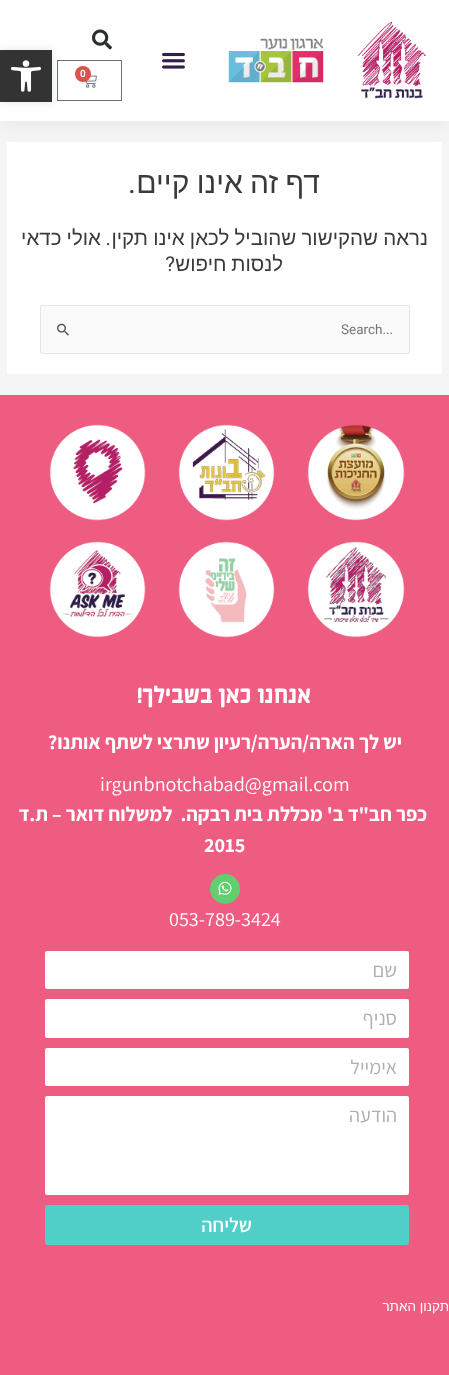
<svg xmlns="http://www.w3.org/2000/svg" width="449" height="1375">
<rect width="100%" height="100%" fill="#f5f5f5"/>
<rect width="449" height="121" fill="#00000014" filter="blur(11.5px)"/>
<rect width="449" height="121" fill="#fff"/>
<rect x="57.5" y="60.5" width="64" height="40" fill="none" stroke="#69727d"/>
<rect y="50" width="52" height="52" fill="#0000001a" filter="blur(5px)"/>
<rect y="50" width="52" height="52" fill="#333"/>
<image x="11" y="60" width="30" height="32" href="media/1.png"/>
<image x="357" y="22" width="70" height="77" href="media/2.png"/>
<image x="228" y="38" width="96" height="45" href="media/3.png"/>
<image x="162" y="52" width="23" height="17" href="media/4.png"/>
<image x="92" y="29" width="20" height="21" href="media/5.png"/>
<image x="85" y="75" width="12" height="13" href="media/6.png"/>
<circle cx="83" cy="74" r="8" fill="#d9534f"/>
<text x="80" y="77" style="font-family:Roboto;font-size:10px;font-weight:600;fill:#fff">0</text>
<rect x="7" y="142" width="435" height="232" fill="#fff"/>
<text x="320" y="193" word-spacing="-1" style="font-family:Liberation Sans;font-size:30px;direction:rtl;fill:#3a3a3a">דף זה אינו קיים</text>
<text x="136" y="193" style="font-family:Roboto;font-size:30px;direction:rtl;fill:#3a3a3a">.</text>
<text x="428" y="245" word-spacing="-0.5" style="font-family:Liberation Sans;font-size:20.5px;direction:rtl;fill:#3a3a3a">נראה שהקישור שהוביל לכאן אינו תקין</text>
<text x="111" y="245" style="font-family:Roboto;font-size:20.5px;direction:rtl;fill:#3a3a3a">.</text>
<text x="101" y="245" word-spacing="-0.5" style="font-family:Liberation Sans;font-size:20.5px;direction:rtl;fill:#3a3a3a">אולי כדאי</text>
<text x="283" y="271" word-spacing="-1" style="font-family:Liberation Sans;font-size:20.5px;direction:rtl;fill:#3a3a3a">לנסות חיפוש</text>
<text x="175" y="271" style="font-family:Roboto;font-size:20.5px;direction:rtl;fill:#3a3a3a">?</text>
<rect x="40.5" y="305.5" width="369" height="48" rx="1.5" fill="#fafafa" stroke="#e5e5e5"/>
<text x="341" y="334" style="font-family:Roboto;font-size:13.5px;fill:#757575">Search...</text>
<image x="57" y="323" width="12" height="13" href="media/7.png"/>
<rect y="395" width="449" height="980" fill="#ef5c81"/>
<image x="307" y="424" width="98" height="97" href="media/8.png"/>
<image x="178" y="424" width="97" height="97" href="media/9.png"/>
<image x="49" y="424" width="97" height="97" href="media/10.png"/>
<image x="307" y="541" width="98" height="97" href="media/11.png"/>
<image x="178" y="541" width="97" height="97" href="media/12.png"/>
<image x="49" y="541" width="97" height="97" href="media/13.png"/>
<text x="311" y="703" style="font-family:'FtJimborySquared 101';font-size:25px;font-weight:bold;direction:rtl;fill:#fff">אנחנו כאן בשבילך!</text>
<text x="402" y="749" style="font-family:Assistant;font-size:20.2px;font-weight:bold;direction:rtl;fill:#fff">יש לך הארה/הערה/רעיון שתרצי לשתף אותנו?</text>
<text x="100" y="791" style="font-family:Assistant;font-size:20.2px;fill:#fff">irgunbnotchabad@gmail.com</text>
<text x="427" y="821" style="font-family:Assistant;font-size:20.2px;font-weight:bold;direction:rtl;fill:#fff" xml:space="preserve">כפר חב"ד ב' מכללת בית רבקה.  למשלוח דואר – ת.ד</text>
<text x="204" y="852" style="font-family:Assistant;font-size:20.2px;font-weight:bold;fill:#fff">2015</text>
<circle cx="225" cy="889" r="15" fill="#61ce70"/>
<image x="218" y="881" width="14" height="14" href="media/14.png"/>
<text x="169" y="926" style="font-family:Assistant;font-size:20.2px;fill:#fff">053-789-3424</text>
<rect x="45" y="951" width="364" height="38" rx="2" fill="#fff"/>
<text x="397" y="977" style="font-family:Assistant;font-size:20.2px;direction:rtl;fill:#afafaf">שם</text>
<rect x="45" y="999" width="364" height="39" rx="2" fill="#fff"/>
<text x="397" y="1025" style="font-family:Assistant;font-size:20.2px;direction:rtl;fill:#afafaf">סניף</text>
<rect x="45" y="1048" width="364" height="38" rx="2" fill="#fff"/>
<text x="397" y="1074" style="font-family:Assistant;font-size:20.2px;direction:rtl;fill:#afafaf">אימייל</text>
<rect x="45" y="1096" width="364" height="99" rx="2" fill="#fff"/>
<text x="397" y="1122" style="font-family:Assistant;font-size:20.2px;direction:rtl;fill:#afafaf">הודעה</text>
<rect x="45" y="1205" width="364" height="40" rx="3" fill="#4fcfc7"/>
<text x="252" y="1232" style="font-family:Assistant;font-size:20.2px;font-weight:600;direction:rtl;fill:#fff">שליחה</text>
<text x="449" y="1311" style="font-family:Liberation Sans;font-size:13.5px;direction:rtl;fill:#fff">תקנון האתר</text>
</svg>
